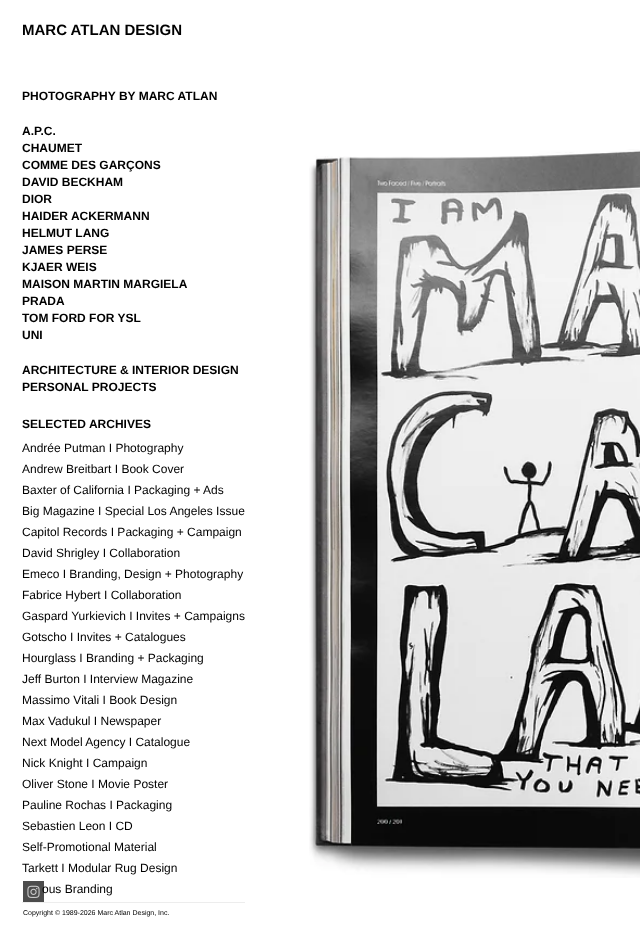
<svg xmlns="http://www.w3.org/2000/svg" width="640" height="927">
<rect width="100%" height="100%" fill="#fff"/>
<text x="22" y="35" style="font-family:Liberation Sans;font-size:15px;font-weight:bold;fill:#000">MARC ATLAN DESIGN</text>
<rect x="22" y="902" width="223" height="1" fill="#ededed"/>
<text x="22" y="100" style="font-family:Liberation Sans;font-size:12px;font-weight:bold;fill:#000">PHOTOGRAPHY BY MARC ATLAN</text>
<text x="22" y="135" style="font-family:Liberation Sans;font-size:12px;font-weight:bold;fill:#000">A.P.C.</text>
<text x="22" y="152" style="font-family:Liberation Sans;font-size:12px;font-weight:bold;fill:#000">CHAUMET</text>
<text x="22" y="169" style="font-family:Liberation Sans;font-size:12px;font-weight:bold;fill:#000">COMME DES GARÇONS</text>
<text x="22" y="186" style="font-family:Liberation Sans;font-size:12px;font-weight:bold;fill:#000">DAVID BECKHAM</text>
<text x="22" y="203" style="font-family:Liberation Sans;font-size:12px;font-weight:bold;fill:#000">DIOR</text>
<text x="22" y="220" style="font-family:Liberation Sans;font-size:12px;font-weight:bold;fill:#000">HAIDER ACKERMANN</text>
<text x="22" y="237" style="font-family:Liberation Sans;font-size:12px;font-weight:bold;fill:#000">HELMUT LANG</text>
<text x="22" y="254" style="font-family:Liberation Sans;font-size:12px;font-weight:bold;fill:#000">JAMES PERSE</text>
<text x="22" y="271" style="font-family:Liberation Sans;font-size:12px;font-weight:bold;fill:#000">KJAER WEIS</text>
<text x="22" y="288" style="font-family:Liberation Sans;font-size:12px;font-weight:bold;fill:#000">MAISON MARTIN MARGIELA</text>
<text x="22" y="305" style="font-family:Liberation Sans;font-size:12px;font-weight:bold;fill:#000">PRADA</text>
<text x="22" y="322" style="font-family:Liberation Sans;font-size:12px;font-weight:bold;fill:#000">TOM FORD FOR YSL</text>
<text x="22" y="339" style="font-family:Liberation Sans;font-size:12px;font-weight:bold;fill:#000">UNI</text>
<text x="22" y="374" style="font-family:Liberation Sans;font-size:12px;font-weight:bold;fill:#000">ARCHITECTURE &amp; INTERIOR DESIGN</text>
<text x="22" y="391" style="font-family:Liberation Sans;font-size:12px;font-weight:bold;fill:#000">PERSONAL PROJECTS</text>
<text x="22" y="428" style="font-family:Liberation Sans;font-size:12px;font-weight:bold;fill:#000">SELECTED ARCHIVES</text>
<text x="22" y="452" style="font-family:Liberation Sans;font-size:12px;fill:#000">Andrée Putman I Photography</text>
<text x="22" y="473" style="font-family:Liberation Sans;font-size:12px;fill:#000">Andrew Breitbart I Book Cover</text>
<text x="22" y="494" style="font-family:Liberation Sans;font-size:12px;fill:#000">Baxter of California I Packaging + Ads</text>
<text x="22" y="515" style="font-family:Liberation Sans;font-size:12px;fill:#000">Big Magazine I Special Los Angeles Issue</text>
<text x="22" y="536" style="font-family:Liberation Sans;font-size:12px;fill:#000">Capitol Records I Packaging + Campaign</text>
<text x="22" y="557" style="font-family:Liberation Sans;font-size:12px;fill:#000">David Shrigley I Collaboration</text>
<text x="22" y="578" style="font-family:Liberation Sans;font-size:12px;fill:#000">Emeco I Branding, Design + Photography</text>
<text x="22" y="599" style="font-family:Liberation Sans;font-size:12px;fill:#000">Fabrice Hybert I Collaboration</text>
<text x="22" y="620" style="font-family:Liberation Sans;font-size:12px;fill:#000">Gaspard Yurkievich I Invites + Campaigns</text>
<text x="22" y="641" style="font-family:Liberation Sans;font-size:12px;fill:#000">Gotscho I Invites + Catalogues</text>
<text x="22" y="662" style="font-family:Liberation Sans;font-size:12px;fill:#000">Hourglass I Branding + Packaging</text>
<text x="22" y="683" style="font-family:Liberation Sans;font-size:12px;fill:#000">Jeff Burton I Interview Magazine</text>
<text x="22" y="704" style="font-family:Liberation Sans;font-size:12px;fill:#000">Massimo Vitali I Book Design</text>
<text x="22" y="725" style="font-family:Liberation Sans;font-size:12px;fill:#000">Max Vadukul I Newspaper</text>
<text x="22" y="746" style="font-family:Liberation Sans;font-size:12px;fill:#000">Next Model Agency I Catalogue</text>
<text x="22" y="767" style="font-family:Liberation Sans;font-size:12px;fill:#000">Nick Knight I Campaign</text>
<text x="22" y="788" style="font-family:Liberation Sans;font-size:12px;fill:#000">Oliver Stone I Movie Poster</text>
<text x="22" y="809" style="font-family:Liberation Sans;font-size:12px;fill:#000">Pauline Rochas I Packaging</text>
<text x="22" y="830" style="font-family:Liberation Sans;font-size:12px;fill:#000">Sebastien Leon I CD</text>
<text x="22" y="851" style="font-family:Liberation Sans;font-size:12px;fill:#000">Self-Promotional Material</text>
<text x="22" y="872" style="font-family:Liberation Sans;font-size:12px;fill:#000">Tarkett I Modular Rug Design</text>
<text x="42" y="893" style="font-family:Liberation Sans;font-size:12px;fill:#000">ous Branding</text>
<image x="309" y="149" width="331" height="729" href="media/1.png"/>
<rect x="23" y="881" width="21" height="21" fill="#000000b3"/>
<image x="27" y="885" width="13" height="13" href="media/2.png"/>
<text x="23" y="915" style="font-family:Liberation Sans;font-size:7px;fill:#000">Copyright © 1989-2026 Marc Atlan Design, Inc.</text>
</svg>
